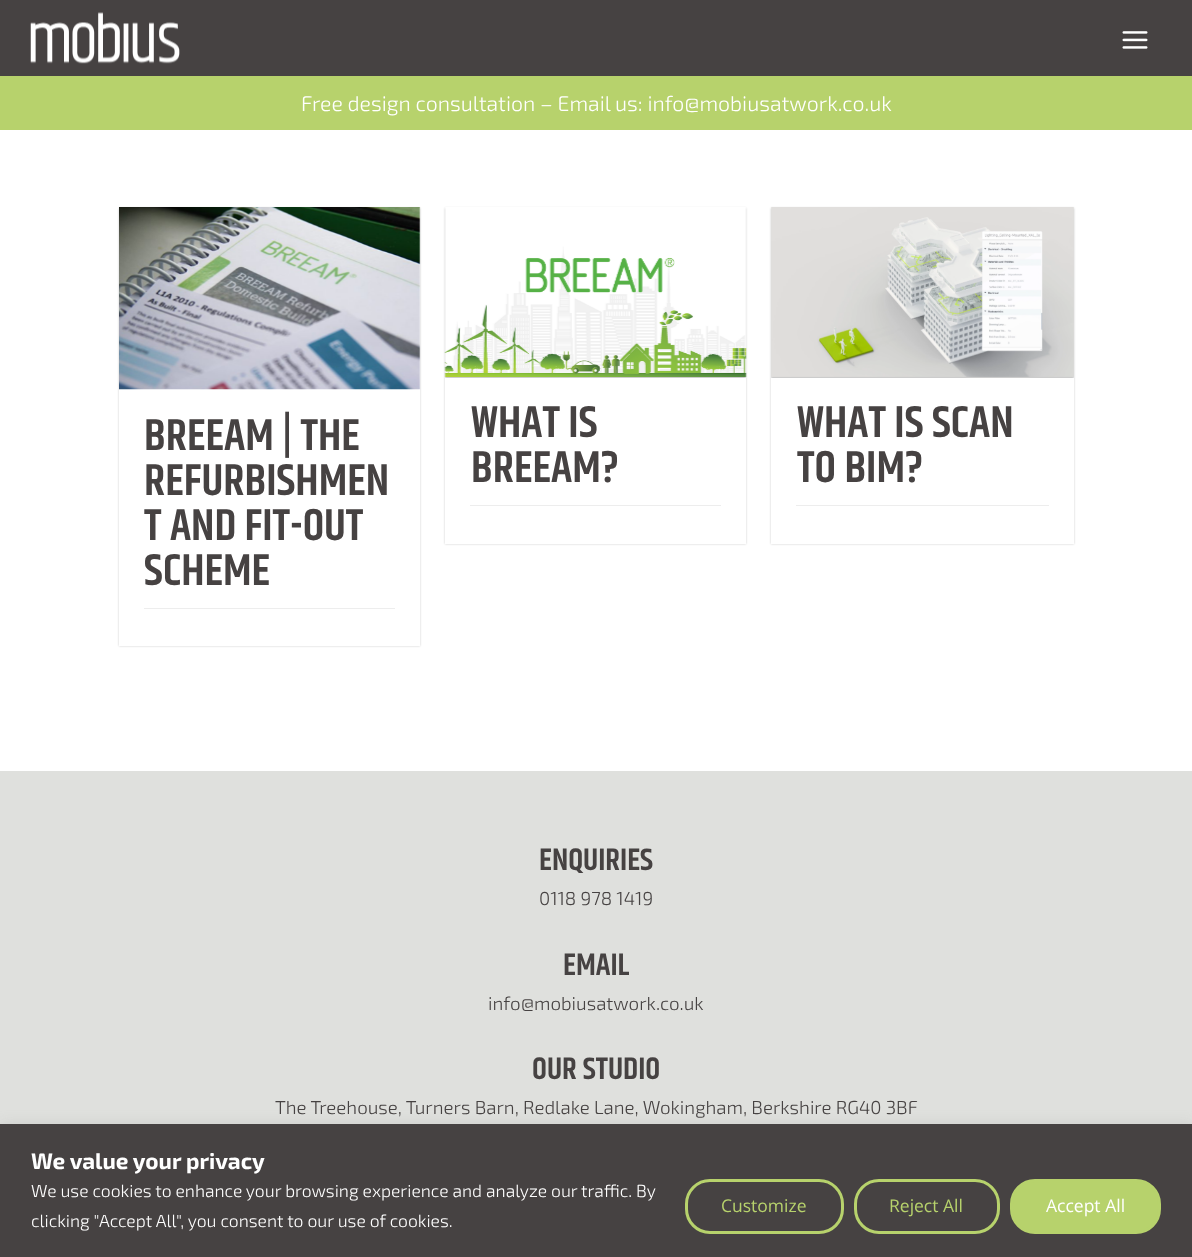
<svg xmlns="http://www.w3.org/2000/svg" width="1192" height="1257">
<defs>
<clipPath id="clip1"><path d="M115 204h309v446h-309zm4 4h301v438h-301z" clip-rule="evenodd"/></clipPath>
</defs>
<rect width="100%" height="100%" fill="#fff"/>
<rect width="1192" height="76" fill="#464242"/>
<image x="30" y="12" width="150" height="52" href="media/1.png"/>
<image x="1122" y="31" width="26" height="18" href="media/2.png"/>
<rect y="76" width="1192" height="54" fill="#b7d26c"/>
<text x="301" y="111" style="font-family:'Exo 2';font-size:21.25px;font-weight:300;fill:#fff">Free design consultation – Email us: info@mobiusatwork.co.uk</text>
<g clip-path="url(#clip1)">
<rect x="119" y="208" width="301" height="438" fill="#00000033" filter="blur(1px)"/>
</g>
<image x="119" y="207" width="302" height="183" href="media/3.png"/>
<rect x="144" y="608" width="251" height="1" fill="#ededed"/>
<text x="144" y="450" style="font-family:Khand;font-size:45px;font-weight:600;fill:#464242">BREEAM | THE</text>
<text x="144" y="495" style="font-family:Khand;font-size:45px;font-weight:600;fill:#464242">REFURBISHMEN</text>
<text x="144" y="540" style="font-family:Khand;font-size:45px;font-weight:600;fill:#464242">T AND FIT-OUT</text>
<text x="144" y="585" style="font-family:Khand;font-size:45px;font-weight:600;fill:#464242">SCHEME</text>
<rect x="445" y="208" width="301" height="336" fill="#00000033" filter="blur(1px)"/>
<image x="444" y="207" width="303" height="170" href="media/4.png"/>
<rect x="445" y="378" width="301" height="166" fill="#fff"/>
<rect x="470" y="505" width="251" height="1" fill="#ededed"/>
<text x="471" y="437" style="font-family:Khand;font-size:45px;font-weight:600;fill:#464242">WHAT IS</text>
<text x="471" y="482" style="font-family:Khand;font-size:45px;font-weight:600;fill:#464242">BREEAM?</text>
<rect x="771" y="208" width="303" height="336" fill="#00000033" filter="blur(1px)"/>
<image x="771" y="207" width="303" height="170" href="media/5.png"/>
<rect x="771" y="378" width="303" height="166" fill="#fff"/>
<rect x="796" y="505" width="253" height="1" fill="#ededed"/>
<text x="797" y="437" style="font-family:Khand;font-size:45px;font-weight:600;fill:#464242">WHAT IS SCAN</text>
<text x="797" y="482" style="font-family:Khand;font-size:45px;font-weight:600;fill:#464242">TO BIM?</text>
<rect y="771" width="1192" height="353" fill="#dfe0dd"/>
<text x="539" y="870" style="font-family:Khand;font-size:31.25px;font-weight:600;fill:#464242">ENQUIRIES</text>
<text x="539" y="905" style="font-family:'Exo 2';font-size:18.75px;font-weight:300;fill:#464242">0118 978 1419</text>
<text x="563" y="975" style="font-family:Khand;font-size:31.25px;font-weight:600;fill:#464242">EMAIL</text>
<text x="488" y="1010" style="font-family:'Exo 2';font-size:18.75px;font-weight:300;fill:#464242">info@mobiusatwork.co.uk</text>
<text x="532" y="1079" style="font-family:Khand;font-size:31.25px;font-weight:600;fill:#464242">OUR STUDIO</text>
<text x="275" y="1114" style="font-family:'Exo 2';font-size:18.75px;font-weight:300;fill:#464242">The Treehouse, Turners Barn, Redlake Lane, Wokingham, Berkshire RG40 3BF</text>
<rect y="1123" width="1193" height="133" fill="#acabab4d" filter="blur(6px)"/>
<rect y="1124" width="1192" height="133" fill="#464242"/>
<text x="31" y="1169" style="font-family:'Exo 2';font-size:22.5px;font-weight:bold;fill:#fff">We value your privacy</text>
<text x="31" y="1197" style="font-family:'Exo 2';font-size:17.5px;font-weight:300;fill:#fff">We use cookies to enhance your browsing experience and analyze our traffic. By</text>
<text x="31" y="1227" style="font-family:'Exo 2';font-size:17.5px;font-weight:300;fill:#fff">clicking "Accept All", you consent to our use of cookies.</text>
<rect x="686.5" y="1180.5" width="156" height="52" rx="23.5" fill="none" stroke="#b7d26c" stroke-width="3"/>
<text x="721" y="1212" style="font-family:Open Sans;font-size:17.5px;fill:#b7d26c">Customize</text>
<rect x="855.5" y="1180.5" width="143" height="52" rx="23.5" fill="none" stroke="#b7d26c" stroke-width="3"/>
<text x="889" y="1212" style="font-family:Open Sans;font-size:17.5px;fill:#b7d26c">Reject All</text>
<rect x="1011.5" y="1180.5" width="148" height="52" rx="23.5" fill="#b7d26c" stroke="#b7d26c" stroke-width="3"/>
<text x="1046" y="1212" style="font-family:Open Sans;font-size:17.5px;fill:#fff">Accept All</text>
</svg>
